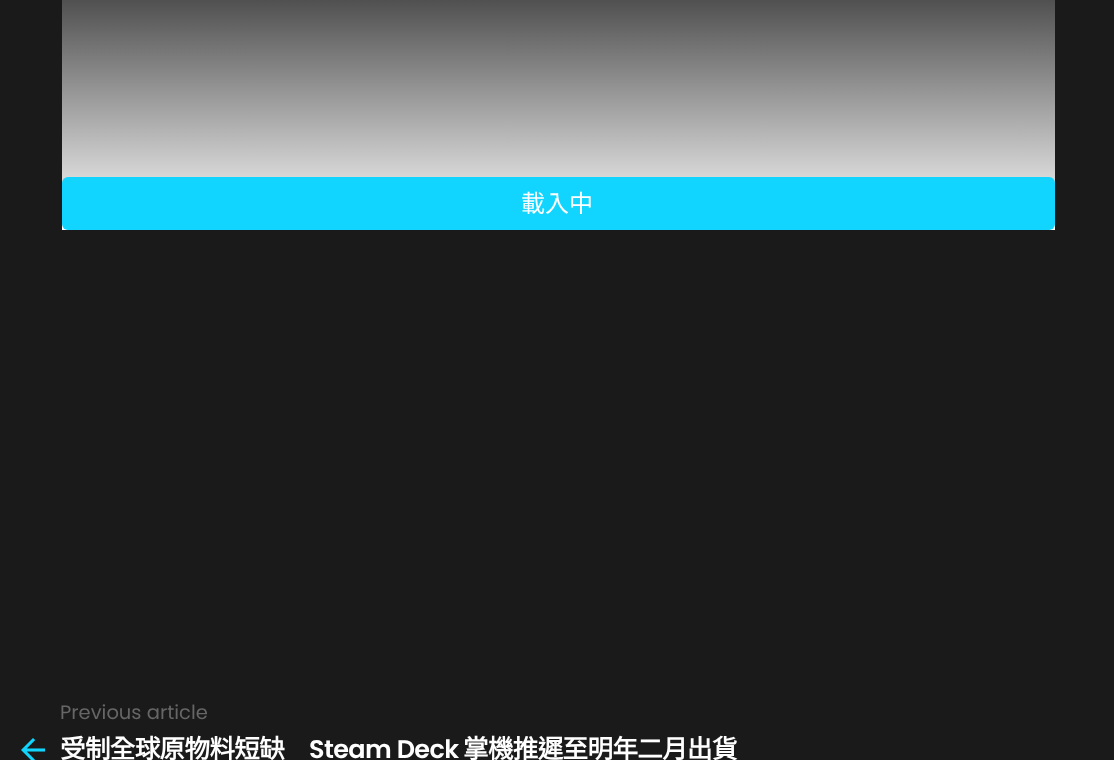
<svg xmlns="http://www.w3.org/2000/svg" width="1114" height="760">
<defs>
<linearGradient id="g1" gradientUnits="userSpaceOnUse" x1="558" y1="-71" x2="558" y2="230"><stop offset="0" stop-color="#1a1a1a"/><stop offset="1" stop-color="#fff"/></linearGradient>
</defs>
<rect width="100%" height="100%" fill="#1a1a1a"/>
<rect x="62" width="993" height="230" fill="url(#g1)"/>
<rect x="62" y="177" width="993" height="53" rx="6" fill="#11d5ff"/>
<text x="521" y="212" style="font-family:Noto Sans CJK HK;font-size:24px;fill:#fff">載入中</text>
<text x="60" y="719" style="font-family:Poppins;font-size:19.5px;fill:#666">Previous article</text>
<image x="21" y="738" width="25" height="22" href="media/1.png"/>
<text x="60" y="758" style="font-family:Noto Sans CJK HK;font-size:25.5px;font-weight:bold;letter-spacing:-0.6px;fill:#fff">受制全球原物料短缺</text>
<text x="309" y="758" style="font-family:Poppins;font-size:25.5px;font-weight:600;letter-spacing:-0.6px;fill:#fff">Steam Deck</text>
<text x="463" y="758" style="font-family:Noto Sans CJK HK;font-size:25.5px;font-weight:bold;letter-spacing:-0.6px;fill:#fff">掌機推遲至明年二月出貨</text>
</svg>
